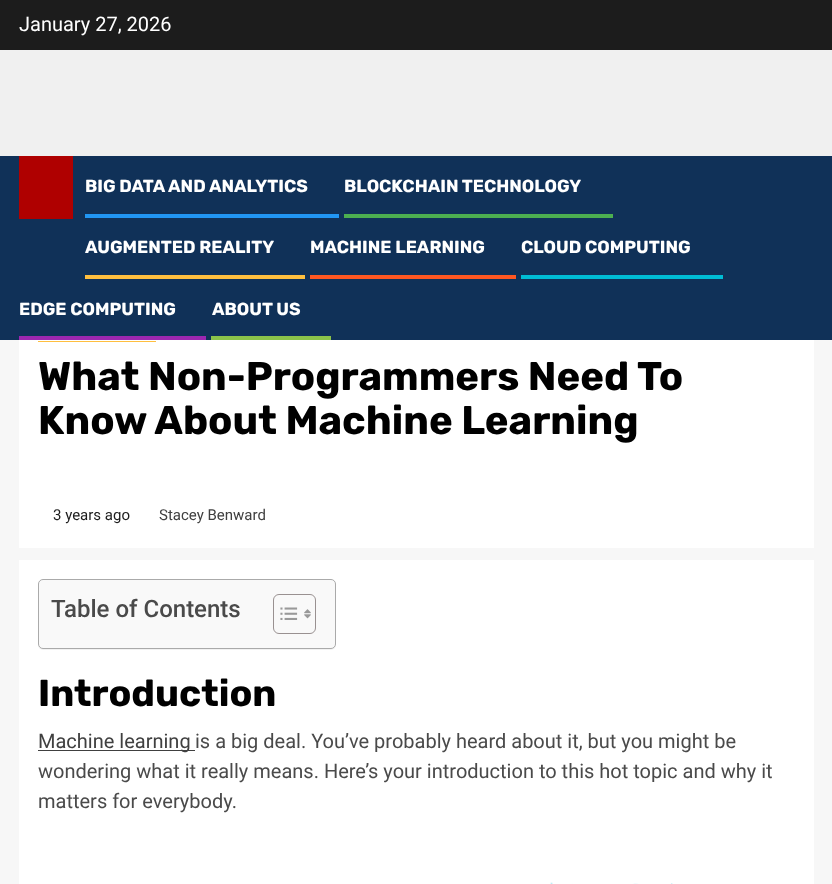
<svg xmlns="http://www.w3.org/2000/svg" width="832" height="884">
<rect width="100%" height="100%" fill="#f7f7f7"/>
<rect y="50" width="832" height="106" fill="#f0f0f0"/>
<rect width="832" height="50" fill="#1c1c1c"/>
<text x="19" y="31" style="font-family:Roboto;font-size:20px;fill:#fff">January 27, 2026</text>
<rect y="156" width="832" height="184" fill="#103158"/>
<rect x="19" y="156" width="54" height="63" fill="#af0000"/>
<text x="85" y="192" style="font-family:Rubik;font-size:17.5px;font-weight:bold;fill:#fff">BIG DATA AND ANALYTICS</text>
<rect x="85" y="214" width="254" height="4" fill="#2196f3"/>
<text x="344" y="192" style="font-family:Rubik;font-size:17.5px;font-weight:bold;fill:#fff">BLOCKCHAIN TECHNOLOGY</text>
<rect x="344" y="214" width="269" height="4" fill="#4caf50"/>
<text x="85" y="253" style="font-family:Rubik;font-size:17.5px;font-weight:bold;fill:#fff">AUGMENTED REALITY</text>
<rect x="85" y="275" width="220" height="4" fill="#ffbf3f"/>
<text x="310" y="253" style="font-family:Rubik;font-size:17.5px;font-weight:bold;fill:#fff">MACHINE LEARNING</text>
<rect x="310" y="275" width="206" height="4" fill="#ff5722"/>
<text x="521" y="253" style="font-family:Rubik;font-size:17.5px;font-weight:bold;fill:#fff">CLOUD COMPUTING</text>
<rect x="521" y="275" width="202" height="4" fill="#00bcd4"/>
<text x="19" y="315" style="font-family:Rubik;font-size:17.5px;font-weight:bold;fill:#fff">EDGE COMPUTING</text>
<rect x="19" y="336" width="187" height="4" fill="#9c27b0"/>
<text x="212" y="315" style="font-family:Rubik;font-size:17.5px;font-weight:bold;fill:#fff">ABOUT US</text>
<rect x="211" y="336" width="120" height="4" fill="#8bc34a"/>
<rect x="19" y="340" width="795" height="208" fill="#fff"/>
<rect x="38" y="341" width="118" height="1" fill="#ffbf3f"/>
<text x="38" y="390" style="font-family:Rubik;font-size:40px;font-weight:bold;fill:#000">What Non-Programmers Need To</text>
<text x="38" y="434" style="font-family:Rubik;font-size:40px;font-weight:bold;fill:#000">Know About Machine Learning</text>
<text x="53" y="520" style="font-family:Roboto;font-size:15px;fill:#1c1c1c">3 years ago</text>
<text x="159" y="520" style="font-family:Roboto;font-size:15px;fill:#404040">Stacey Benward</text>
<rect x="19" y="560" width="795" height="324" fill="#fff"/>
<rect x="38" y="580" width="298" height="70" rx="5" fill="#0000000d" filter="blur(0.5px)"/>
<rect x="38.5" y="579.5" width="297" height="69" rx="4.5" fill="#f9f9f9" stroke="#aaa"/>
<text x="51" y="617" style="font-family:Roboto;font-size:24px;font-weight:500;fill:#4a4a4a">Table of Contents</text>
<rect x="273.5" y="594.5" width="42" height="39" rx="5.5" fill="none" stroke="#999191"/>
<image x="280" y="607" width="18" height="13" href="media/1.png"/>
<image x="304" y="609" width="7" height="10" href="media/2.png"/>
<text x="38" y="706" style="font-family:Rubik;font-size:37.5px;font-weight:bold;fill:#000">Introduction</text>
<rect x="38" y="750" width="157" height="1" fill="#404040"/>
<text x="38" y="748" style="font-family:Roboto;font-size:20px;fill:#404040">Machine learning</text>
<text x="195" y="748" style="font-family:Roboto;font-size:20px;fill:#4a4a4a">is a big deal. You’ve probably heard about it, but you might be</text>
<text x="38" y="778" style="font-family:Roboto;font-size:20px;fill:#4a4a4a">wondering what it really means. Here’s your introduction to this hot topic and why it</text>
<text x="38" y="808" style="font-family:Roboto;font-size:20px;fill:#4a4a4a">matters for everybody.</text>
<image x="550" y="882" width="123" height="2" href="media/3.png"/>
</svg>
